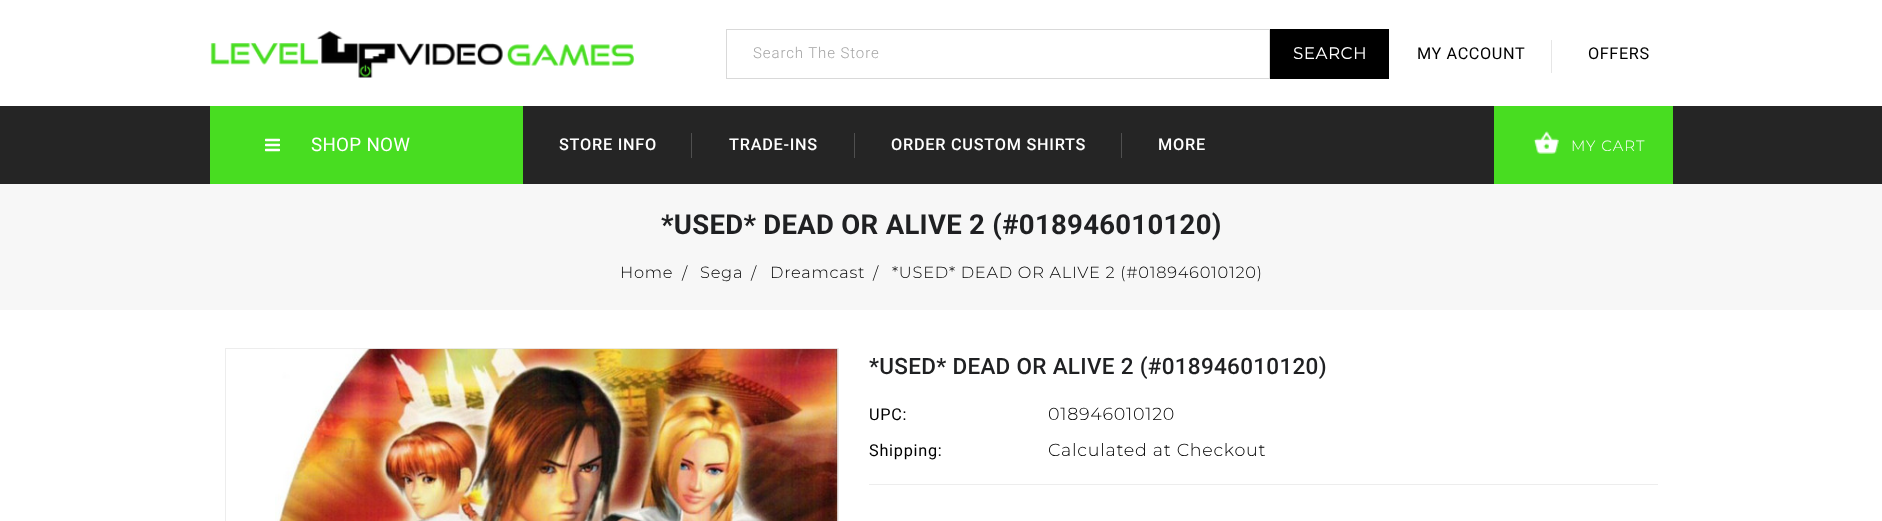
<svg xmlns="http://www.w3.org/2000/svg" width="1882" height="521">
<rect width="100%" height="100%" fill="#fff"/>
<image x="210" y="31" width="425" height="47" href="media/1.png"/>
<rect x="726.5" y="29.5" width="543" height="49" fill="none" stroke="#d9d9d9"/>
<text x="753" y="58" style="font-family:Roboto;font-size:15px;font-weight:300;letter-spacing:0.9px;fill:#a5a5a5">Search The Store</text>
<rect x="1270" y="29" width="119" height="50" fill="#000"/>
<text x="1293" y="59" style="font-family:Montserrat;font-size:16.25px;font-weight:bold;letter-spacing:0.9px;fill:#fff">SEARCH</text>
<text x="1417" y="59" style="font-family:Roboto;font-size:16.25px;letter-spacing:0.6px;fill:#000">MY ACCOUNT</text>
<rect x="1551" y="40" width="1" height="33" fill="#e6e6e6"/>
<text x="1588" y="59" style="font-family:Roboto;font-size:16.25px;letter-spacing:0.6px;fill:#000">OFFERS</text>
<rect y="106" width="1882" height="78" fill="#252525"/>
<rect x="210" y="106" width="313" height="78" fill="#48dd21"/>
<image x="265" y="138" width="15" height="14" href="media/2.png"/>
<text x="311" y="151" style="font-family:Roboto;font-size:18.75px;letter-spacing:0.3px;fill:#fff">SHOP NOW</text>
<text x="559" y="150" style="font-family:Roboto;font-size:16.25px;font-weight:500;letter-spacing:0.75px;fill:#fff">STORE INFO</text>
<rect x="691" y="133" width="1" height="25" fill="#4f4f4f"/>
<text x="729" y="150" style="font-family:Roboto;font-size:16.25px;font-weight:500;letter-spacing:0.75px;fill:#fff">TRADE-INS</text>
<rect x="854" y="133" width="1" height="25" fill="#4f4f4f"/>
<text x="891" y="150" style="font-family:Roboto;font-size:16.25px;font-weight:500;letter-spacing:0.75px;fill:#fff">ORDER CUSTOM SHIRTS</text>
<rect x="1121" y="133" width="1" height="25" fill="#4f4f4f"/>
<text x="1158" y="150" style="font-family:Roboto;font-size:16.25px;font-weight:500;letter-spacing:0.75px;fill:#fff">MORE</text>
<rect x="1494" y="106" width="179" height="78" fill="#48dd21"/>
<image x="1533" y="131" width="26" height="23" href="media/3.png"/>
<text x="1571" y="151" style="font-family:Montserrat;font-size:15px;font-weight:100;letter-spacing:1px;fill:#fff">MY CART</text>
<rect y="184" width="1882" height="126" fill="#f7f7f7"/>
<text x="661" y="234" style="font-family:Roboto;font-size:27.5px;font-weight:bold;letter-spacing:0.3px;fill:#1f2022">*USED* DEAD OR ALIVE 2 (#018946010120)</text>
<text x="620" y="278" style="font-family:Montserrat;font-size:16.25px;font-weight:100;letter-spacing:0.75px;fill:#000">Home</text>
<text x="682" y="279" style="font-family:Montserrat;font-size:16.25px;font-weight:100;letter-spacing:0.75px;fill:#000">/</text>
<text x="700" y="278" style="font-family:Montserrat;font-size:16.25px;font-weight:100;letter-spacing:0.75px;fill:#000">Sega</text>
<text x="751" y="279" style="font-family:Montserrat;font-size:16.25px;font-weight:100;letter-spacing:0.75px;fill:#000">/</text>
<text x="770" y="278" style="font-family:Montserrat;font-size:16.25px;font-weight:100;letter-spacing:0.75px;fill:#000">Dreamcast</text>
<text x="873" y="279" style="font-family:Montserrat;font-size:16.25px;font-weight:100;letter-spacing:0.75px;fill:#000">/</text>
<text x="892" y="278" style="font-family:Montserrat;font-size:16.25px;font-weight:100;letter-spacing:0.75px;fill:#000">*USED* DEAD OR ALIVE 2 (#018946010120)</text>
<rect x="225.5" y="348.5" width="613" height="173" fill="none" stroke="#ededed"/>
<image x="275" y="348" width="563" height="173" href="media/4.png"/>
<text x="869" y="374" style="font-family:Roboto;font-size:22.5px;font-weight:500;letter-spacing:0.3px;fill:#1f2022">*USED* DEAD OR ALIVE 2 (#018946010120)</text>
<rect x="869" y="484" width="789" height="1" fill="#ededed"/>
<text x="869" y="420" style="font-family:Roboto;font-size:16.25px;letter-spacing:0.75px;fill:#000">UPC:</text>
<text x="1048" y="420" style="font-family:Montserrat;font-size:17.5px;font-weight:100;letter-spacing:0.75px;fill:#000">018946010120</text>
<text x="869" y="456" style="font-family:Roboto;font-size:16.25px;letter-spacing:0.75px;fill:#000">Shipping:</text>
<text x="1048" y="456" style="font-family:Montserrat;font-size:17.5px;font-weight:100;letter-spacing:0.75px;fill:#000">Calculated at Checkout</text>
</svg>
